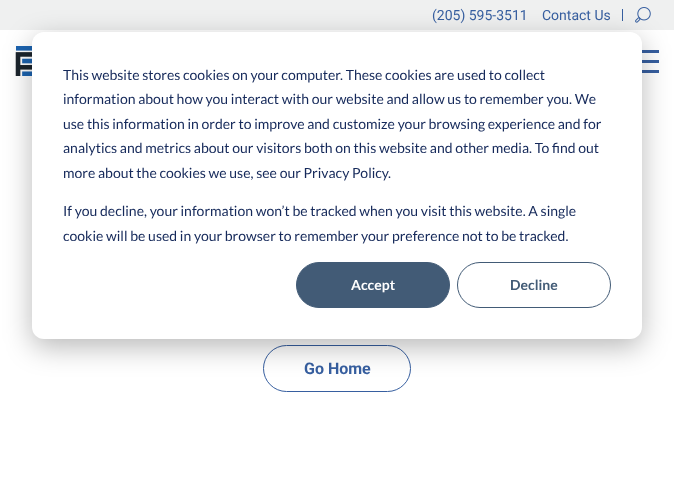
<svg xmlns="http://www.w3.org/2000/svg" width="674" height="487">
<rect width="100%" height="100%" fill="#fff"/>
<rect width="674" height="30" fill="#eff0f0"/>
<text x="432" y="20" style="font-family:Roboto;font-size:14px;fill:#375fa0">(205) 595-3511</text>
<text x="542" y="20" style="font-family:Roboto;font-size:14px;fill:#375fa0">Contact Us</text>
<rect x="622" y="9" width="1" height="12" fill="#375fa0"/>
<image x="635" y="7" width="16" height="16" href="media/1.png"/>
<image x="15" y="46" width="17" height="30" href="media/2.png"/>
<rect x="642" y="60" width="17" height="3" fill="#375fa0"/>
<rect x="642" y="50" width="17" height="3" fill="#375fa0"/>
<rect x="642" y="70" width="17" height="3" fill="#375fa0"/>
<rect x="263.5" y="345.5" width="147" height="46" rx="23" fill="none" stroke="#375fa0"/>
<text x="304" y="374" style="font-family:Roboto;font-size:16px;font-weight:bold;fill:#375fa0">Go Home</text>
<rect x="32" y="40" width="610" height="307" rx="12" fill="#00000047" filter="blur(14px)"/>
<rect x="32" y="32" width="610" height="307" rx="12" fill="#fff"/>
<text x="63" y="80" style="font-family:Lato;font-size:14px;fill:#15295a">This website stores cookies on your computer. These cookies are used to collect</text>
<text x="63" y="104" style="font-family:Lato;font-size:14px;fill:#15295a">information about how you interact with our website and allow us to remember you. We</text>
<text x="63" y="129" style="font-family:Lato;font-size:14px;fill:#15295a">use this information in order to improve and customize your browsing experience and for</text>
<text x="63" y="153" style="font-family:Lato;font-size:14px;fill:#15295a">analytics and metrics about our visitors both on this website and other media. To find out</text>
<text x="63" y="178" style="font-family:Lato;font-size:14px;fill:#15295a">more about the cookies we use, see our Privacy Policy.</text>
<text x="63" y="216" style="font-family:Lato;font-size:14px;fill:#15295a">If you decline, your information won’t be tracked when you visit this website. A single</text>
<text x="63" y="241" style="font-family:Lato;font-size:14px;fill:#15295a">cookie will be used in your browser to remember your preference not to be tracked.</text>
<rect x="296.5" y="262.5" width="153" height="45" rx="22.5" fill="#425b76" stroke="#425b76"/>
<text x="351" y="290" style="font-family:Lato;font-size:14px;font-weight:bold;fill:#fff">Accept</text>
<rect x="457.5" y="262.5" width="153" height="45" rx="22.5" fill="none" stroke="#425b76"/>
<text x="510" y="290" style="font-family:Lato;font-size:14px;font-weight:bold;fill:#425b76">Decline</text>
</svg>
